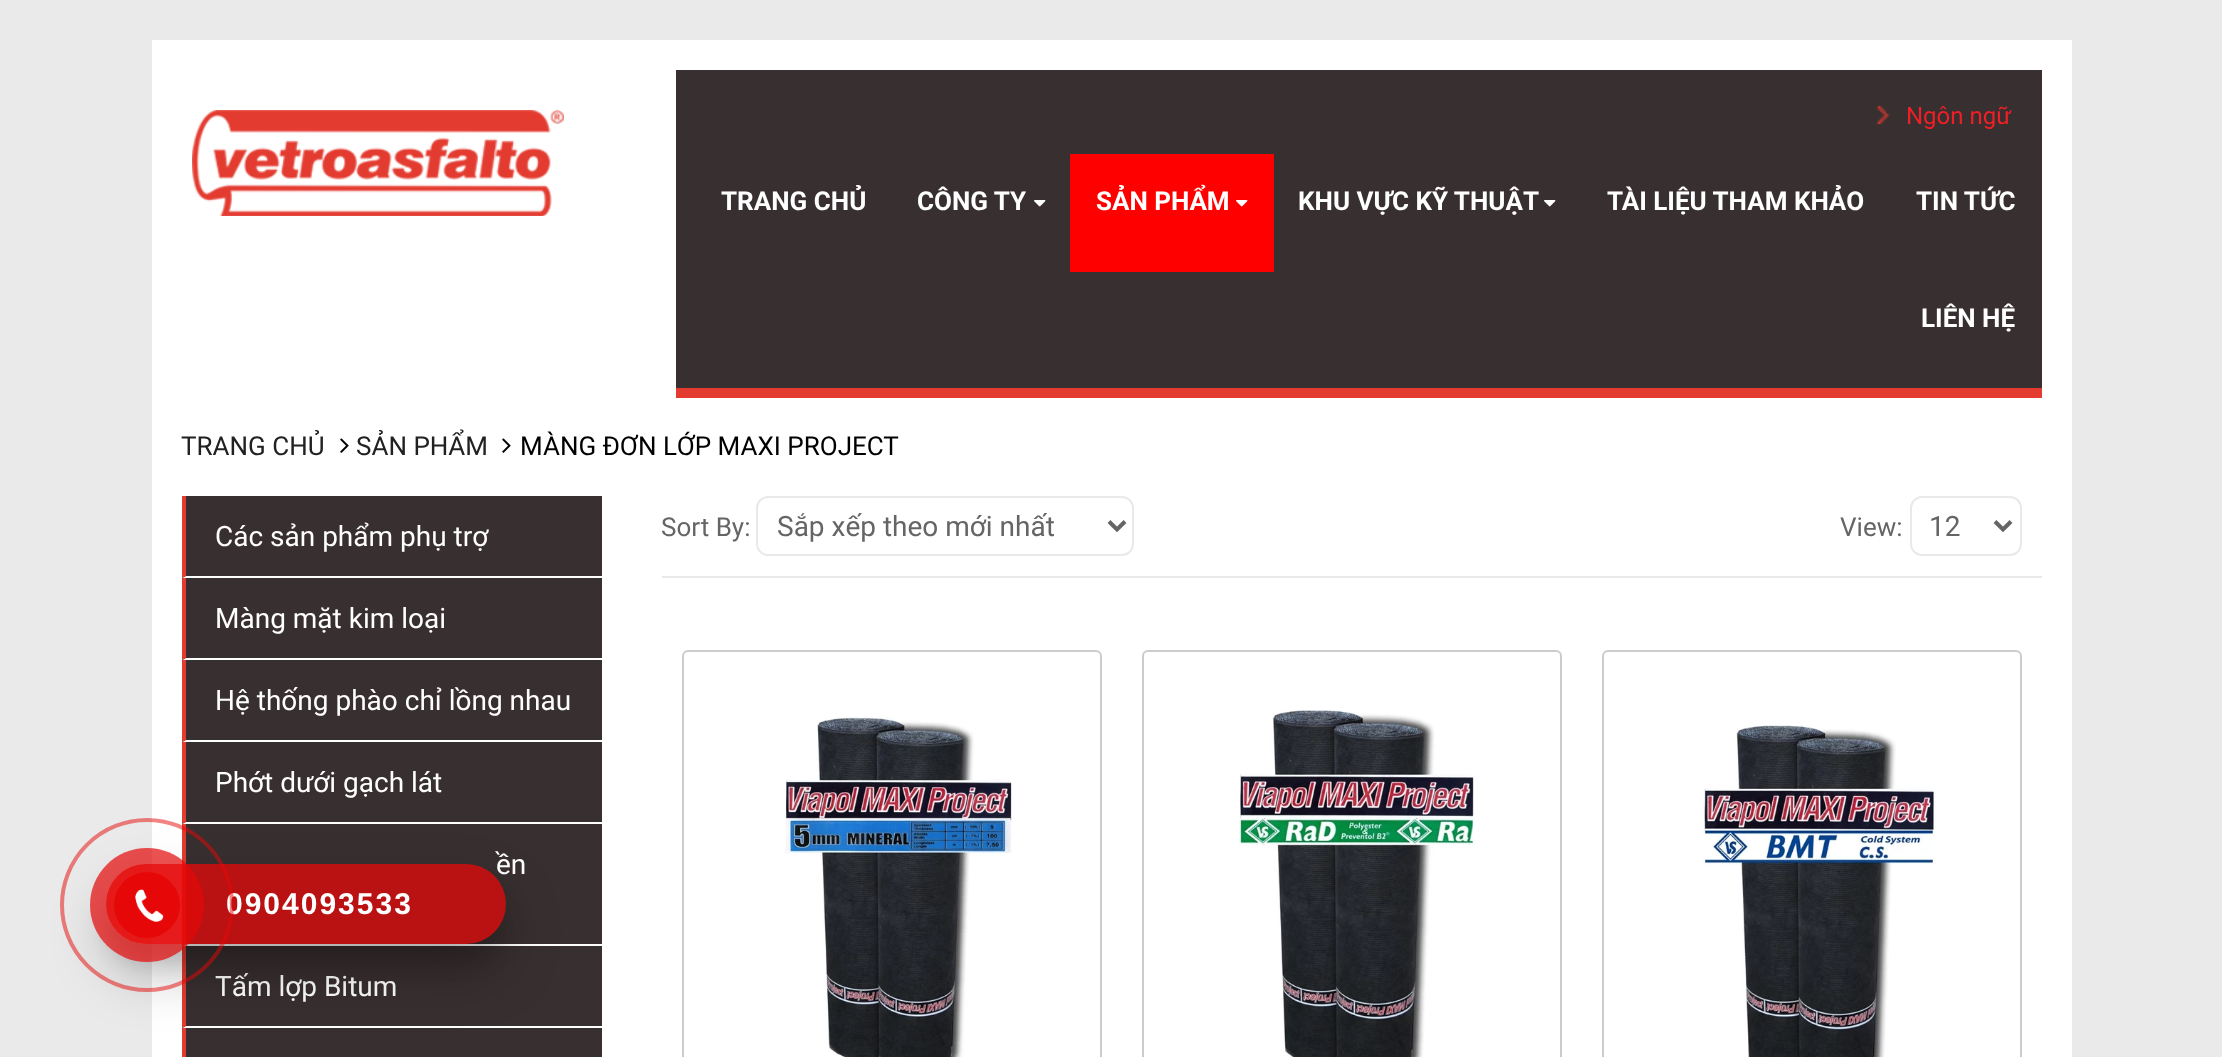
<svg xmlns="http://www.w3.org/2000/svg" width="2222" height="1057">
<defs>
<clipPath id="clip1"><path d="M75 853h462v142h-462zm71 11h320c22 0 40 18 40 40c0 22-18 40-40 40h-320c-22 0-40-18-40-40c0-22 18-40 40-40z" clip-rule="evenodd"/></clipPath>
<clipPath id="clip2"><path d="M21 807h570v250h-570zm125 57h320c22 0 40 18 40 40c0 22-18 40-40 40h-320c-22 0-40-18-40-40c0-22 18-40 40-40z" clip-rule="evenodd"/></clipPath>
</defs>
<rect width="100%" height="100%" fill="#eaeaea"/>
<rect x="152" y="40" width="1920" height="1017" fill="#fff"/>
<image x="192" y="110" width="372" height="106" href="media/1.png"/>
<rect x="676" y="70" width="1366" height="318" fill="#382f30"/>
<rect x="676" y="388" width="1366" height="10" fill="#e33b30"/>
<image x="1876" y="106" width="14" height="18" href="media/2.png"/>
<text x="1906" y="124" style="font-family:Roboto;font-size:24px;fill:#ee1f25">Ngôn ngữ</text>
<text x="721" y="210" style="font-family:Roboto;font-size:26px;font-weight:bold;fill:#fff">TRANG CHỦ</text>
<text x="917" y="210" style="font-family:Roboto;font-size:26px;font-weight:bold;fill:#fff">CÔNG TY</text>
<image x="1034" y="200" width="12" height="7" href="media/3.png"/>
<rect x="1070" y="154" width="204" height="118" fill="#f00"/>
<text x="1096" y="210" style="font-family:Roboto;font-size:26px;font-weight:bold;fill:#fff">SẢN PHẨM</text>
<image x="1236" y="200" width="12" height="7" href="media/4.png"/>
<text x="1298" y="210" style="font-family:Roboto;font-size:26px;font-weight:bold;fill:#fff">KHU VỰC KỸ THUẬT</text>
<image x="1544" y="200" width="12" height="7" href="media/3.png"/>
<text x="1607" y="210" style="font-family:Roboto;font-size:26px;font-weight:bold;fill:#fff">TÀI LIỆU THAM KHẢO</text>
<text x="1916" y="210" style="font-family:Roboto;font-size:26px;font-weight:bold;fill:#fff">TIN TỨC</text>
<text x="1921" y="327" style="font-family:Roboto;font-size:26px;font-weight:bold;fill:#fff">LIÊN HỆ</text>
<text x="181" y="455" style="font-family:Roboto;font-size:26px;fill:#212121">TRANG CHỦ</text>
<image x="340" y="438" width="9" height="15" href="media/5.png"/>
<text x="356" y="455" style="font-family:Roboto;font-size:26px;fill:#212121">SẢN PHẨM</text>
<image x="502" y="438" width="9" height="15" href="media/5.png"/>
<text x="520" y="455" style="font-family:Roboto;font-size:26px;fill:#000">MÀNG ĐƠN LỚP MAXI PROJECT</text>
<rect x="182" y="496" width="420" height="532" fill="#382f30"/>
<path d="M602 578h-420l4-2h416z" fill="#fff"/>
<path d="M182 578v-82h4v80z" fill="#e33b30"/>
<text x="215" y="546" style="font-family:Roboto;font-size:28px;fill:#fff">Các sản phẩm phụ trợ</text>
<path d="M602 660h-420l4-2h416z" fill="#fff"/>
<path d="M182 660v-82h4v80z" fill="#e33b30"/>
<text x="215" y="628" style="font-family:Roboto;font-size:28px;fill:#fff">Màng mặt kim loại</text>
<path d="M602 742h-420l4-2h416z" fill="#fff"/>
<path d="M182 742v-82h4v80z" fill="#e33b30"/>
<text x="215" y="710" style="font-family:Roboto;font-size:28px;fill:#fff">Hệ thống phào chỉ lồng nhau</text>
<path d="M602 824h-420l4-2h416z" fill="#fff"/>
<path d="M182 824v-82h4v80z" fill="#e33b30"/>
<text x="215" y="792" style="font-family:Roboto;font-size:28px;fill:#fff">Phớt dưới gạch lát</text>
<path d="M602 946h-420l4-2h416z" fill="#fff"/>
<path d="M182 946v-122h4v120z" fill="#e33b30"/>
<text x="496" y="874" style="font-family:Roboto;font-size:28px;fill:#fff">ền</text>
<path d="M602 1028h-420l4-2h416z" fill="#fff"/>
<path d="M182 1028v-82h4v80z" fill="#e33b30"/>
<text x="215" y="996" style="font-family:Roboto;font-size:28px;fill:#fff">Tấm lợp Bitum</text>
<rect x="186" y="1028" width="416" height="29" fill="#382f30"/>
<path d="M182 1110v-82h4v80z" fill="#e33b30"/>
<rect x="662" y="576" width="1380" height="2" fill="#e9e9e9"/>
<text x="661" y="536" style="font-family:Roboto;font-size:26px;fill:#656565">Sort By:</text>
<rect x="757" y="497" width="376" height="58" rx="11" fill="none" stroke="#e9e9e9" stroke-width="2"/>
<path d="M1109 521.5l8 8l8-8" fill="none" stroke="#656565" stroke-width="4"/>
<text x="777" y="536" style="font-family:Roboto;font-size:28px;fill:#656565">Sắp xếp theo mới nhất</text>
<text x="1840" y="536" style="font-family:Roboto;font-size:26px;fill:#656565">View:</text>
<rect x="1911" y="497" width="110" height="58" rx="11" fill="none" stroke="#e9e9e9" stroke-width="2"/>
<path d="M1995 521.5l8 8l8-8" fill="none" stroke="#656565" stroke-width="4"/>
<text x="1929" y="536" style="font-family:Roboto;font-size:28px;fill:#656565">12</text>
<rect x="683" y="651" width="418" height="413" rx="5" fill="none" stroke="#ccc" stroke-width="2"/>
<image x="785" y="716" width="228" height="341" href="media/6.png"/>
<rect x="1143" y="651" width="418" height="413" rx="5" fill="none" stroke="#ccc" stroke-width="2"/>
<image x="1239" y="710" width="236" height="347" href="media/7.png"/>
<rect x="1603" y="651" width="418" height="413" rx="5" fill="none" stroke="#ccc" stroke-width="2"/>
<image x="1702" y="725" width="234" height="332" href="media/8.png"/>
<g clip-path="url(#clip1)">
<rect x="106" y="884" width="400" height="80" rx="40" fill="#0000001a" filter="blur(10px)"/>
</g>
<g clip-path="url(#clip2)">
<rect x="106" y="892" width="400" height="80" rx="40" fill="#00000040" filter="blur(28px)"/>
</g>
<rect x="106" y="864" width="400" height="80" rx="40" fill="#e60808bf"/>
<text x="226" y="914" style="font-family:Liberation Sans;font-size:30px;font-weight:bold;letter-spacing:2px;fill:#fff">0904093533</text>
<circle cx="147" cy="905" r="85" fill="none" stroke="#e6080880" stroke-width="4"/>
<circle cx="147" cy="905" r="57" fill="#e60808b3"/>
<circle cx="147" cy="905" r="33" fill="#e60808"/>
<image x="135" y="889" width="29" height="33" href="media/9.png"/>
</svg>
